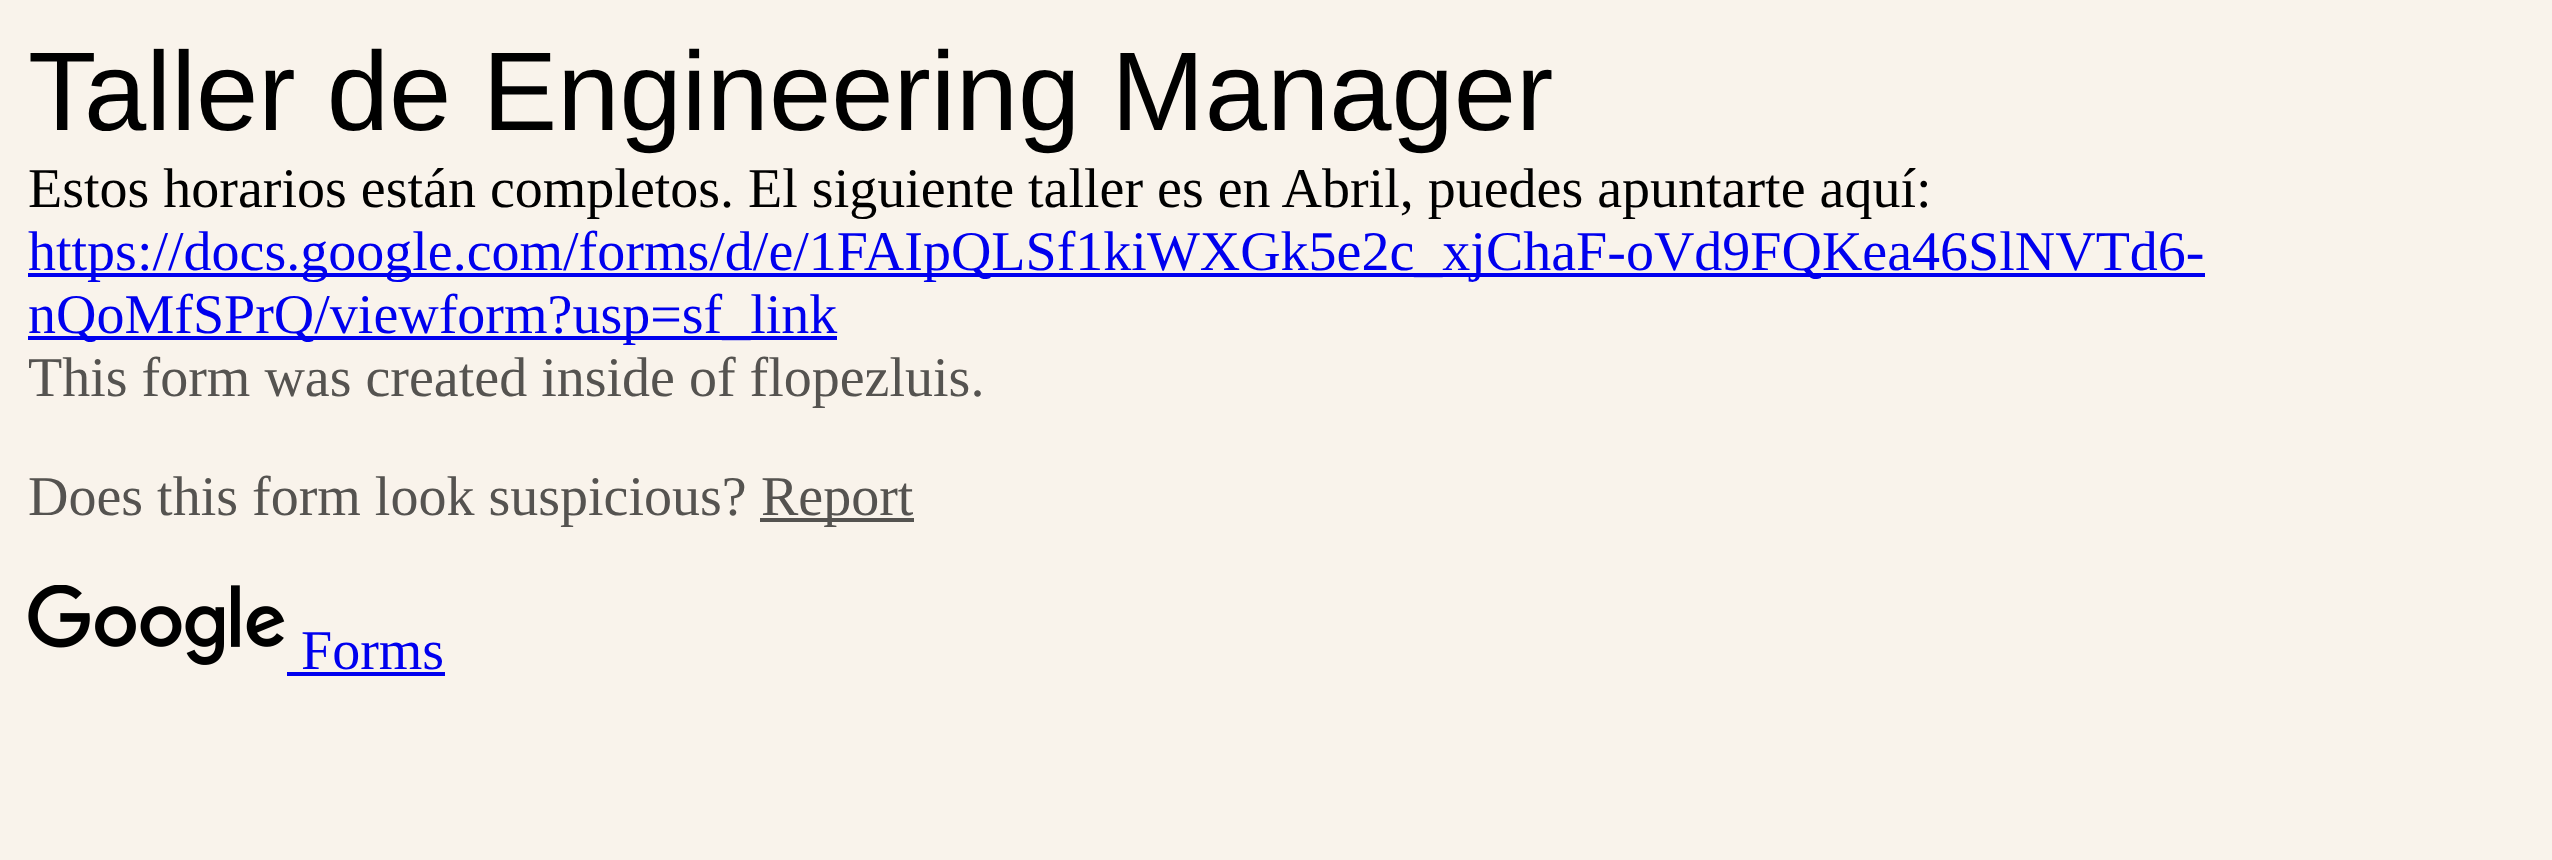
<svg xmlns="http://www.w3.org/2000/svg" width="2552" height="860">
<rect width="100%" height="100%" fill="#f9f3eb"/>
<text x="28" y="130" style="font-family:Liberation Sans;font-size:112px;fill:#000">Taller de Engineering Manager</text>
<text x="28" y="207" style="font-family:Liberation Serif;font-size:56px;fill:#000">Estos horarios están completos. El siguiente taller es en Abril, puedes apuntarte aquí:</text>
<rect x="28" y="273" width="2177" height="4" fill="#00e"/>
<text x="28" y="270" style="font-family:Liberation Serif;font-size:56px;fill:#00e">https://docs.google.com/forms/d/e/1FAIpQLSf1kiWXGk5e2c_xjChaF-oVd9FQKea46SlNVTd6-</text>
<rect x="28" y="336" width="809" height="4" fill="#00e"/>
<text x="28" y="333" style="font-family:Liberation Serif;font-size:56px;fill:#00e">nQoMfSPrQ/viewform?usp=sf_link</text>
<text x="28" y="396" style="font-family:Liberation Serif;font-size:56px;fill:#555350">This form was created inside of flopezluis.</text>
<text x="28" y="515" style="font-family:Liberation Serif;font-size:56px;fill:#555350">Does this form look suspicious?</text>
<rect x="760" y="518" width="154" height="4" fill="#555350"/>
<text x="761" y="515" style="font-family:Liberation Serif;font-size:56px;fill:#555350">Report</text>
<image x="28" y="585" width="257" height="80" href="media/1.png"/>
<text x="301" y="669" style="font-family:Liberation Serif;font-size:56px;fill:#00e">Forms</text>
<rect x="287" y="672" width="158" height="4" fill="#00e"/>
</svg>
